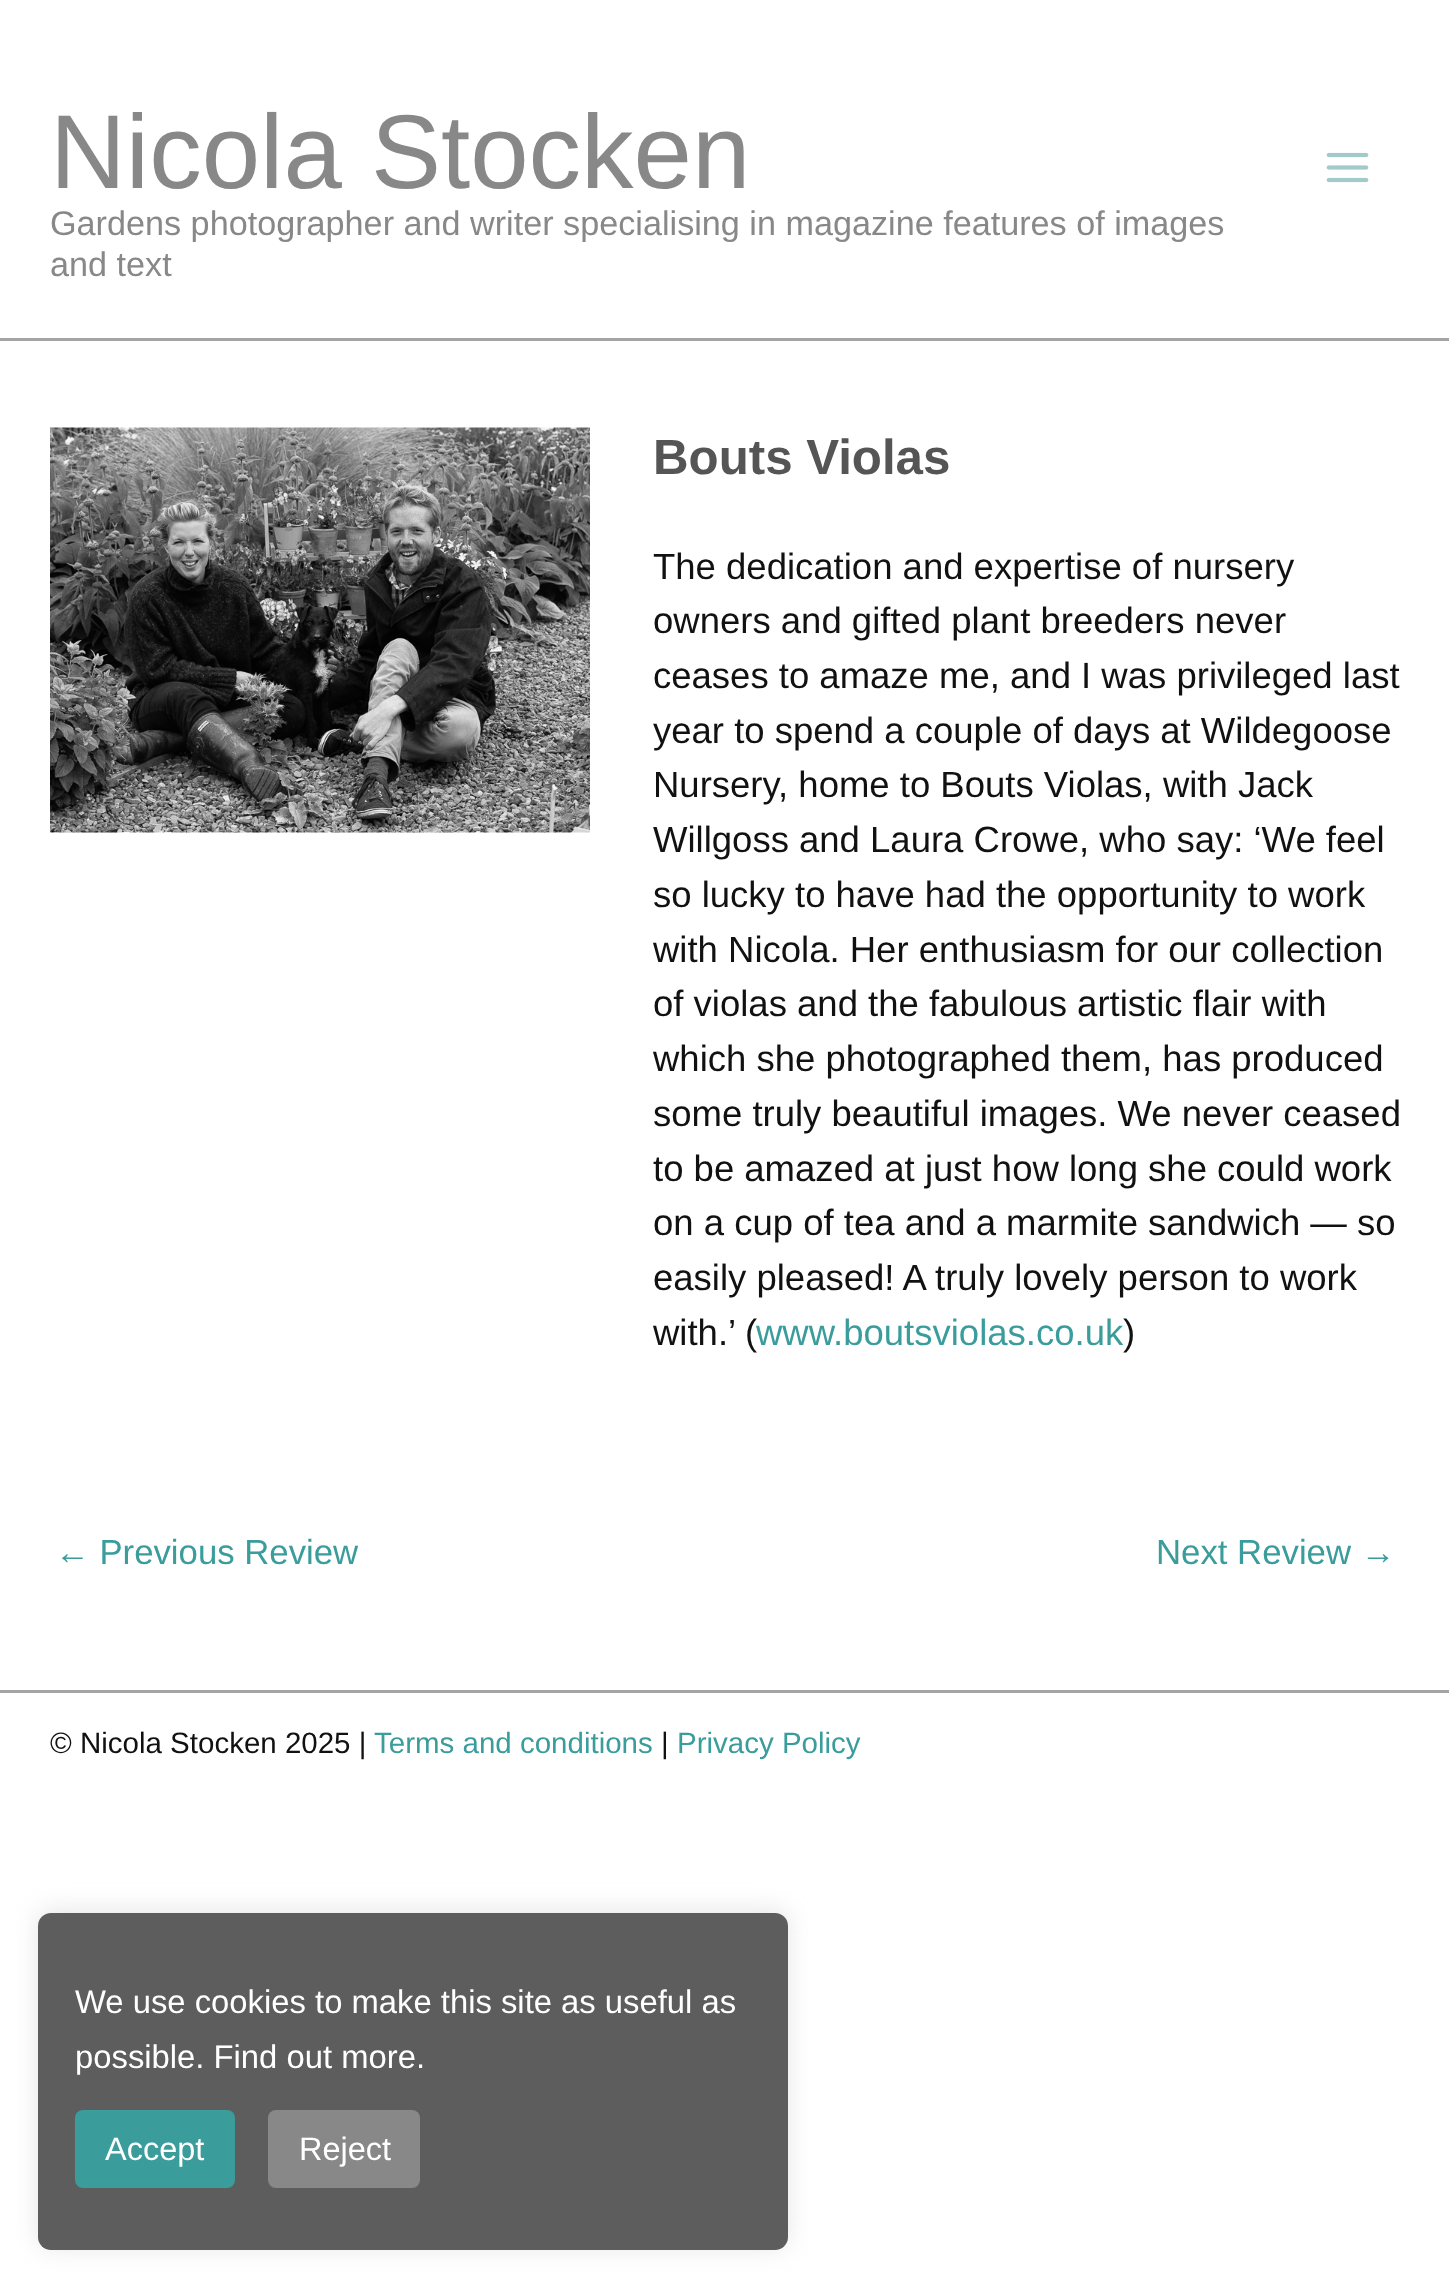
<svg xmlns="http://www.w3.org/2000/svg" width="1449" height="2287">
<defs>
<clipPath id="clip1"><path d="M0 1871h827v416h-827zm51 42h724c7 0 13 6 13 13v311c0 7-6 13-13 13h-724c-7 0-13-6-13-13v-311c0-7 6-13 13-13z" clip-rule="evenodd"/></clipPath>
</defs>
<rect width="100%" height="100%" fill="#fff"/>
<rect y="338" width="1449" height="3" fill="#a4a4a4"/>
<text x="50" y="188" style="font-family:Liberation Sans;font-size:105px;fill:#888">Nicola Stocken</text>
<text x="50" y="235" style="font-family:Liberation Sans;font-size:34.2px;fill:#888">Gardens photographer and writer specialising in magazine features of images</text>
<text x="50" y="276" style="font-family:Liberation Sans;font-size:34.2px;fill:#888">and text</text>
<image x="1326" y="152" width="43" height="31" href="media/1.png"/>
<image x="50" y="427" width="540" height="406" href="media/2.png"/>
<text x="653" y="474" style="font-family:Liberation Sans;font-size:49.25px;font-weight:bold;fill:#555">Bouts Violas</text>
<text x="653" y="579" style="font-family:Liberation Sans;font-size:36.5px;fill:#111">The dedication and expertise of nursery</text>
<text x="653" y="633" style="font-family:Liberation Sans;font-size:36.5px;fill:#111">owners and gifted plant breeders never</text>
<text x="653" y="688" style="font-family:Liberation Sans;font-size:36.5px;fill:#111">ceases to amaze me, and I was privileged last</text>
<text x="653" y="743" style="font-family:Liberation Sans;font-size:36.5px;fill:#111">year to spend a couple of days at Wildegoose</text>
<text x="653" y="797" style="font-family:Liberation Sans;font-size:36.5px;fill:#111">Nursery, home to Bouts Violas, with Jack</text>
<text x="653" y="852" style="font-family:Liberation Sans;font-size:36.5px;fill:#111">Willgoss and Laura Crowe, who say: ‘We feel</text>
<text x="653" y="907" style="font-family:Liberation Sans;font-size:36.5px;fill:#111">so lucky to have had the opportunity to work</text>
<text x="653" y="962" style="font-family:Liberation Sans;font-size:36.5px;fill:#111">with Nicola. Her enthusiasm for our collection</text>
<text x="653" y="1016" style="font-family:Liberation Sans;font-size:36.5px;fill:#111">of violas and the fabulous artistic flair with</text>
<text x="653" y="1071" style="font-family:Liberation Sans;font-size:36.5px;fill:#111">which she photographed them, has produced</text>
<text x="653" y="1126" style="font-family:Liberation Sans;font-size:36.5px;fill:#111">some truly beautiful images. We never ceased</text>
<text x="653" y="1181" style="font-family:Liberation Sans;font-size:36.5px;fill:#111">to be amazed at just how long she could work</text>
<text x="653" y="1235" style="font-family:Liberation Sans;font-size:36.5px;fill:#111">on a cup of tea and a marmite sandwich — so</text>
<text x="653" y="1290" style="font-family:Liberation Sans;font-size:36.5px;fill:#111">easily pleased! A truly lovely person to work</text>
<text x="653" y="1345" style="font-family:Liberation Sans;font-size:36.5px;fill:#111">with.’ (</text>
<text x="756" y="1345" style="font-family:Liberation Sans;font-size:36.5px;fill:#3b9c9c">www.boutsviolas.co.uk</text>
<text x="1123" y="1345" style="font-family:Liberation Sans;font-size:36.5px;fill:#111">)</text>
<text x="55" y="1564" style="font-family:Liberation Sans;font-size:34.75px;fill:#3b9c9c">← Previous Review</text>
<text x="1156" y="1564" style="font-family:Liberation Sans;font-size:34.75px;fill:#3b9c9c">Next Review →</text>
<rect y="1690" width="1449" height="3" fill="#a4a4a4"/>
<text x="50" y="1753" style="font-family:Liberation Sans;font-size:29.5px;fill:#111">© Nicola Stocken 2025 |</text>
<text x="374" y="1753" style="font-family:Liberation Sans;font-size:29.5px;fill:#3b9c9c">Terms and conditions</text>
<text x="661" y="1753" style="font-family:Liberation Sans;font-size:29.5px;fill:#111">|</text>
<text x="677" y="1753" style="font-family:Liberation Sans;font-size:29.5px;fill:#3b9c9c">Privacy Policy</text>
<g clip-path="url(#clip1)">
<rect x="38" y="1910" width="750" height="338" rx="13" fill="#acabab4d" filter="blur(12.5px)"/>
</g>
<rect x="38" y="1913" width="750" height="337" rx="13" fill="#545454f2"/>
<text x="75" y="2013" style="font-family:Liberation Sans;font-size:32.8px;fill:#fff">We use cookies to make this site as useful as</text>
<text x="75" y="2068" style="font-family:Liberation Sans;font-size:32.8px;fill:#fff">possible. Find out more.</text>
<rect x="75" y="2110" width="160" height="78" rx="8" fill="#3b9c9c"/>
<text x="105" y="2160" style="font-family:Liberation Sans;font-size:32.5px;fill:#fff">Accept</text>
<rect x="268" y="2110" width="152" height="78" rx="8" fill="#888"/>
<text x="299" y="2160" style="font-family:Liberation Sans;font-size:32.5px;fill:#fff">Reject</text>
</svg>
